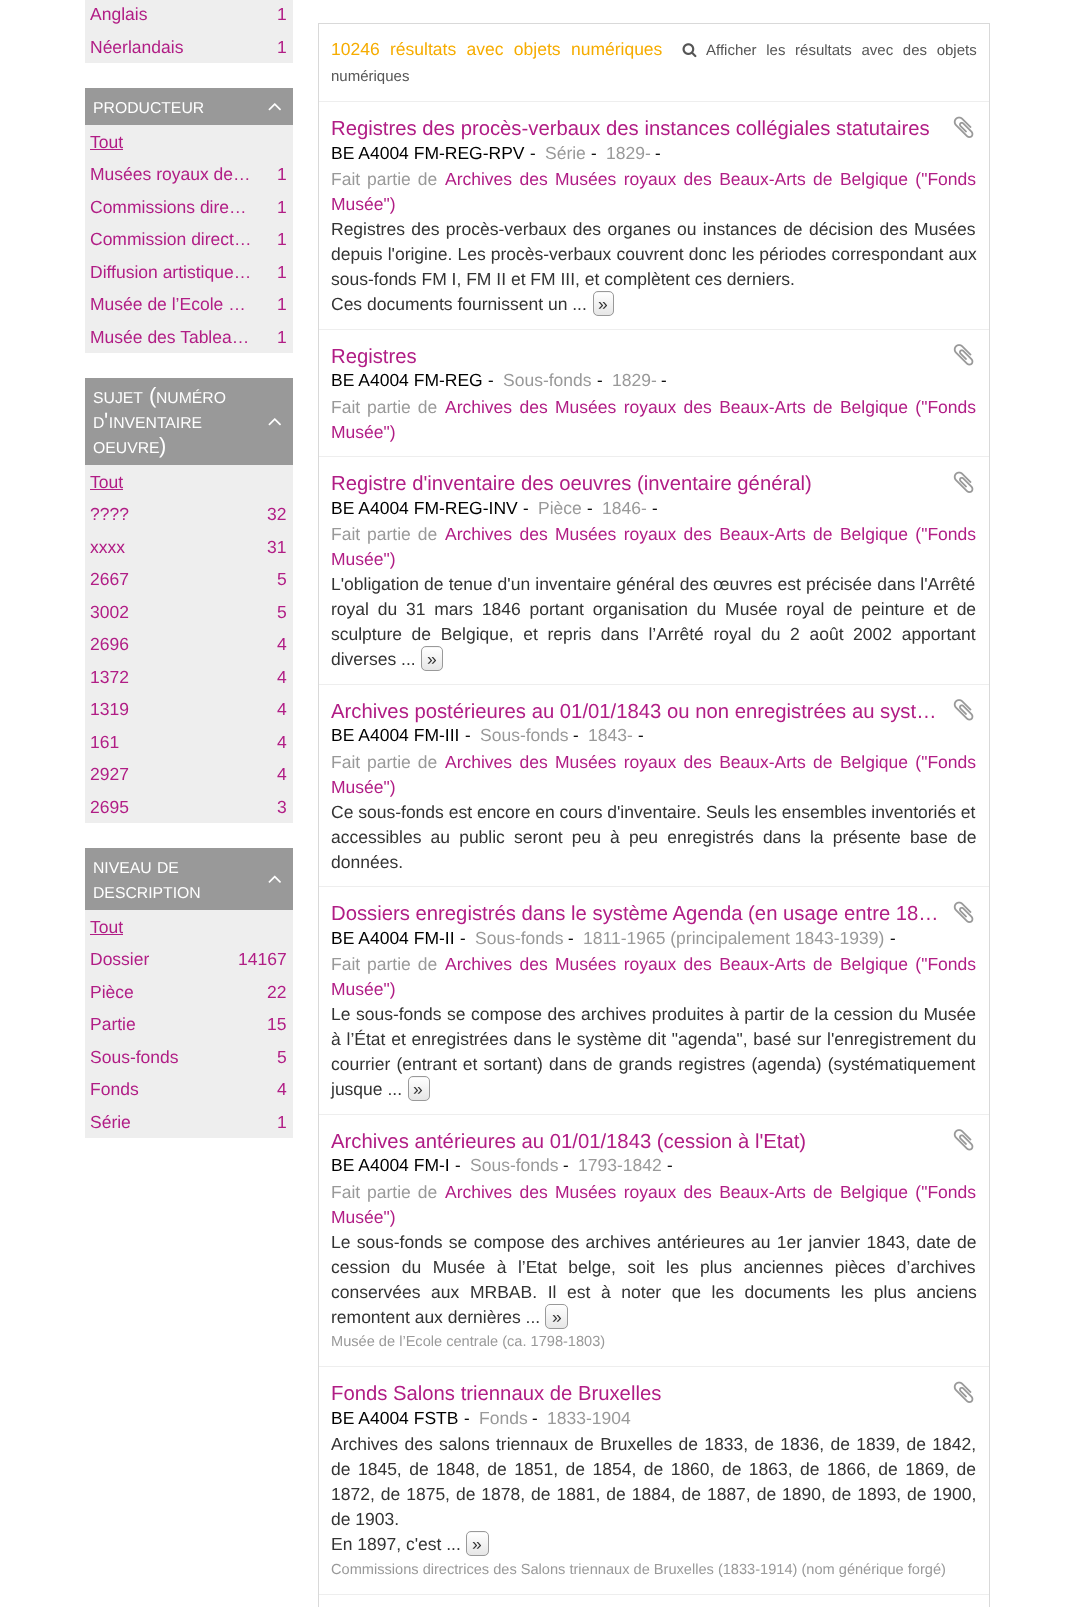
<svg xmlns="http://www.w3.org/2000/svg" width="1075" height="1607">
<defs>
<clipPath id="clip1"><rect x="593" y="291" width="21" height="25" rx="5"/></clipPath>
<linearGradient id="g1" gradientUnits="userSpaceOnUse" x1="603" y1="293" x2="603" y2="315"><stop offset="0" stop-color="#fff"/><stop offset="1" stop-color="#e6e6e6"/></linearGradient>
<clipPath id="clip2"><rect x="421" y="646" width="22" height="25" rx="5"/></clipPath>
<linearGradient id="g2" gradientUnits="userSpaceOnUse" x1="432" y1="648" x2="432" y2="670"><stop offset="0" stop-color="#fff"/><stop offset="1" stop-color="#e6e6e6"/></linearGradient>
<clipPath id="clip3"><rect x="408" y="1076" width="22" height="25" rx="5"/></clipPath>
<linearGradient id="g3" gradientUnits="userSpaceOnUse" x1="419" y1="1078" x2="419" y2="1100"><stop offset="0" stop-color="#fff"/><stop offset="1" stop-color="#e6e6e6"/></linearGradient>
<clipPath id="clip4"><rect x="545" y="1304" width="23" height="25" rx="5"/></clipPath>
<linearGradient id="g4" gradientUnits="userSpaceOnUse" x1="556" y1="1305" x2="556" y2="1328"><stop offset="0" stop-color="#fff"/><stop offset="1" stop-color="#e6e6e6"/></linearGradient>
<clipPath id="clip5"><rect x="466" y="1531" width="23" height="25" rx="5"/></clipPath>
<linearGradient id="g5" gradientUnits="userSpaceOnUse" x1="478" y1="1533" x2="478" y2="1555"><stop offset="0" stop-color="#fff"/><stop offset="1" stop-color="#e6e6e6"/></linearGradient>
</defs>
<rect width="100%" height="100%" fill="#fff"/>
<rect x="85" width="208" height="63" fill="#eee"/>
<text x="90" y="20" style="font-family:Liberation Sans;font-size:17.5px;fill:#b11d85">Anglais</text>
<text x="277" y="20" style="font-family:Liberation Sans;font-size:17.5px;fill:#b11d85">1</text>
<text x="90" y="53" style="font-family:Liberation Sans;font-size:17.5px;fill:#b11d85">Néerlandais</text>
<text x="277" y="53" style="font-family:Liberation Sans;font-size:17.5px;fill:#b11d85">1</text>
<rect x="85" y="88" width="208" height="37" fill="#999"/>
<text x="93" y="113" style="font-family:Liberation Sans;font-size:15.75px;fill:#fff">PRODUCTEUR</text>
<image x="268" y="103" width="13" height="8" href="media/1.png"/>
<rect x="85" y="125" width="208" height="228" fill="#eee"/>
<text x="90" y="148" style="font-family:Liberation Sans;font-size:17.5px;fill:#b11d85">Tout</text>
<rect x="90" y="149" width="33" height="1" fill="#b11d85"/>
<text x="90" y="180" style="font-family:Liberation Sans;font-size:17.5px;fill:#b11d85">Musées royaux de…</text>
<text x="277" y="180" style="font-family:Liberation Sans;font-size:17.5px;fill:#b11d85">1</text>
<text x="90" y="213" style="font-family:Liberation Sans;font-size:17.5px;fill:#b11d85">Commissions dire…</text>
<text x="277" y="213" style="font-family:Liberation Sans;font-size:17.5px;fill:#b11d85">1</text>
<text x="90" y="245" style="font-family:Liberation Sans;font-size:17.5px;fill:#b11d85">Commission direct…</text>
<text x="277" y="245" style="font-family:Liberation Sans;font-size:17.5px;fill:#b11d85">1</text>
<text x="90" y="278" style="font-family:Liberation Sans;font-size:17.5px;fill:#b11d85">Diffusion artistique…</text>
<text x="277" y="278" style="font-family:Liberation Sans;font-size:17.5px;fill:#b11d85">1</text>
<text x="90" y="310" style="font-family:Liberation Sans;font-size:17.5px;fill:#b11d85">Musée de l’Ecole …</text>
<text x="277" y="310" style="font-family:Liberation Sans;font-size:17.5px;fill:#b11d85">1</text>
<text x="90" y="343" style="font-family:Liberation Sans;font-size:17.5px;fill:#b11d85">Musée des Tablea…</text>
<text x="277" y="343" style="font-family:Liberation Sans;font-size:17.5px;fill:#b11d85">1</text>
<rect x="85" y="378" width="208" height="87" fill="#999"/>
<text x="93" y="403" style="font-family:Liberation Sans;font-size:15.75px;fill:#fff">SUJET</text>
<text x="149" y="403" style="font-family:Liberation Sans;font-size:22px;fill:#fff">(</text>
<text x="156" y="403" style="font-family:Liberation Sans;font-size:15.75px;fill:#fff">NUMÉRO</text>
<text x="104" y="428" style="font-family:Liberation Sans;font-size:22px;fill:#fff">'</text>
<text x="93" y="428" style="font-family:Liberation Sans;font-size:15.75px;fill:#fff">D INVENTAIRE</text>
<image x="268" y="418" width="13" height="8" href="media/1.png"/>
<text x="93" y="453" style="font-family:Liberation Sans;font-size:15.75px;fill:#fff">OEUVRE</text>
<text x="159" y="453" style="font-family:Liberation Sans;font-size:22px;fill:#fff">)</text>
<rect x="85" y="465" width="208" height="358" fill="#eee"/>
<text x="90" y="488" style="font-family:Liberation Sans;font-size:17.5px;fill:#b11d85">Tout</text>
<rect x="90" y="489" width="33" height="1" fill="#b11d85"/>
<text x="90" y="520" style="font-family:Liberation Sans;font-size:17.5px;fill:#b11d85">????</text>
<text x="267" y="520" style="font-family:Liberation Sans;font-size:17.5px;fill:#b11d85">32</text>
<text x="90" y="553" style="font-family:Liberation Sans;font-size:17.5px;fill:#b11d85">xxxx</text>
<text x="267" y="553" style="font-family:Liberation Sans;font-size:17.5px;fill:#b11d85">31</text>
<text x="90" y="585" style="font-family:Liberation Sans;font-size:17.5px;fill:#b11d85">2667</text>
<text x="277" y="585" style="font-family:Liberation Sans;font-size:17.5px;fill:#b11d85">5</text>
<text x="90" y="618" style="font-family:Liberation Sans;font-size:17.5px;fill:#b11d85">3002</text>
<text x="277" y="618" style="font-family:Liberation Sans;font-size:17.5px;fill:#b11d85">5</text>
<text x="90" y="650" style="font-family:Liberation Sans;font-size:17.5px;fill:#b11d85">2696</text>
<text x="277" y="650" style="font-family:Liberation Sans;font-size:17.5px;fill:#b11d85">4</text>
<text x="90" y="683" style="font-family:Liberation Sans;font-size:17.5px;fill:#b11d85">1372</text>
<text x="277" y="683" style="font-family:Liberation Sans;font-size:17.5px;fill:#b11d85">4</text>
<text x="90" y="715" style="font-family:Liberation Sans;font-size:17.5px;fill:#b11d85">1319</text>
<text x="277" y="715" style="font-family:Liberation Sans;font-size:17.5px;fill:#b11d85">4</text>
<text x="90" y="748" style="font-family:Liberation Sans;font-size:17.5px;fill:#b11d85">161</text>
<text x="277" y="748" style="font-family:Liberation Sans;font-size:17.5px;fill:#b11d85">4</text>
<text x="90" y="780" style="font-family:Liberation Sans;font-size:17.5px;fill:#b11d85">2927</text>
<text x="277" y="780" style="font-family:Liberation Sans;font-size:17.5px;fill:#b11d85">4</text>
<text x="90" y="813" style="font-family:Liberation Sans;font-size:17.5px;fill:#b11d85">2695</text>
<text x="277" y="813" style="font-family:Liberation Sans;font-size:17.5px;fill:#b11d85">3</text>
<rect x="85" y="848" width="208" height="62" fill="#999"/>
<text x="93" y="873" style="font-family:Liberation Sans;font-size:15.75px;fill:#fff">NIVEAU</text>
<text x="157" y="873" style="font-family:Liberation Sans;font-size:15.75px;fill:#fff">DE</text>
<image x="268" y="875" width="13" height="8" href="media/2.png"/>
<text x="93" y="898" style="font-family:Liberation Sans;font-size:15.75px;fill:#fff">DESCRIPTION</text>
<rect x="85" y="910" width="208" height="228" fill="#eee"/>
<text x="90" y="933" style="font-family:Liberation Sans;font-size:17.5px;fill:#b11d85">Tout</text>
<rect x="90" y="934" width="33" height="1" fill="#b11d85"/>
<text x="90" y="965" style="font-family:Liberation Sans;font-size:17.5px;fill:#b11d85">Dossier</text>
<text x="238" y="965" style="font-family:Liberation Sans;font-size:17.5px;fill:#b11d85">14167</text>
<text x="90" y="998" style="font-family:Liberation Sans;font-size:17.5px;fill:#b11d85">Pièce</text>
<text x="267" y="998" style="font-family:Liberation Sans;font-size:17.5px;fill:#b11d85">22</text>
<text x="90" y="1030" style="font-family:Liberation Sans;font-size:17.5px;fill:#b11d85">Partie</text>
<text x="267" y="1030" style="font-family:Liberation Sans;font-size:17.5px;fill:#b11d85">15</text>
<text x="90" y="1063" style="font-family:Liberation Sans;font-size:17.5px;fill:#b11d85">Sous-fonds</text>
<text x="277" y="1063" style="font-family:Liberation Sans;font-size:17.5px;fill:#b11d85">5</text>
<text x="90" y="1095" style="font-family:Liberation Sans;font-size:17.5px;fill:#b11d85">Fonds</text>
<text x="277" y="1095" style="font-family:Liberation Sans;font-size:17.5px;fill:#b11d85">4</text>
<text x="90" y="1128" style="font-family:Liberation Sans;font-size:17.5px;fill:#b11d85">Série</text>
<text x="277" y="1128" style="font-family:Liberation Sans;font-size:17.5px;fill:#b11d85">1</text>
<rect x="318.5" y="23.5" width="671" height="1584" fill="none" stroke="#d9d9d9"/>
<rect x="319" y="101" width="670" height="1" fill="#eee"/>
<text x="331" y="55" word-spacing="5.5" style="font-family:Liberation Sans;font-size:17.5px;fill:#f6ac00">10246 résultats avec objets numériques</text>
<image x="682" y="43" width="15" height="15" href="media/3.png"/>
<text x="706" y="55" word-spacing="5.5" style="font-family:Liberation Sans;font-size:15px;fill:#555">Afficher les résultats avec des objets</text>
<text x="331" y="81" style="font-family:Liberation Sans;font-size:15px;fill:#555">numériques</text>
<rect x="319" y="329" width="670" height="1" fill="#eee"/>
<text x="331" y="135" style="font-family:Liberation Sans;font-size:20.3px;fill:#b11d85">Registres des procès-verbaux des instances collégiales statutaires</text>
<image x="953" y="116" width="21" height="22" href="media/4.png"/>
<text x="331" y="159" style="font-family:Liberation Sans;font-size:17.5px;fill:#000">BE A4004 FM-REG-RPV</text>
<text x="530" y="159" style="font-family:Open Sans;font-size:17.5px;fill:#000">-</text>
<text x="545" y="159" style="font-family:Liberation Sans;font-size:17.5px;fill:#999">Série</text>
<text x="591" y="159" style="font-family:Open Sans;font-size:17.5px;fill:#000">-</text>
<text x="606" y="159" style="font-family:Liberation Sans;font-size:17.5px;fill:#999">1829-</text>
<text x="655" y="159" style="font-family:Open Sans;font-size:17.5px;fill:#000">-</text>
<text x="331" y="185" word-spacing="2" style="font-family:Liberation Sans;font-size:17.5px;fill:#999">Fait partie de</text>
<text x="445" y="185" word-spacing="2.5" style="font-family:Liberation Sans;font-size:17.5px;fill:#b11d85">Archives des Musées royaux des Beaux-Arts de Belgique ("Fonds</text>
<text x="331" y="210" style="font-family:Liberation Sans;font-size:17.5px;fill:#b11d85">Musée")</text>
<text x="331" y="235" word-spacing="1.5" style="font-family:Liberation Sans;font-size:17.5px;fill:#333">Registres des procès-verbaux des organes ou instances de décision des Musées</text>
<text x="331" y="260" word-spacing="0.25" style="font-family:Liberation Sans;font-size:17.5px;fill:#333">depuis l'origine. Les procès-verbaux couvrent donc les périodes correspondant aux</text>
<text x="331" y="285" style="font-family:Liberation Sans;font-size:17.5px;fill:#333">sous-fonds FM I, FM II et FM III, et complètent ces derniers.</text>
<text x="331" y="310" style="font-family:Liberation Sans;font-size:17.5px;fill:#333">Ces documents fournissent un ...</text>
<rect x="593" y="291" width="21" height="25" rx="5" fill="#f5f5f5"/>
<g clip-path="url(#clip1)">
<rect x="593" y="293" width="21" height="22" fill="url(#g1)"/>
</g>
<rect x="593.5" y="291.5" width="20" height="24" rx="4.5" fill="none" stroke="#999"/>
<text x="598" y="310" style="font-family:Liberation Sans;font-size:17.5px;fill:#333">»</text>
<rect x="319" y="456" width="670" height="1" fill="#eee"/>
<text x="331" y="363" style="font-family:Liberation Sans;font-size:20.3px;fill:#b11d85">Registres</text>
<image x="953" y="344" width="21" height="22" href="media/5.png"/>
<text x="331" y="386" style="font-family:Liberation Sans;font-size:17.5px;fill:#000">BE A4004 FM-REG</text>
<text x="488" y="386" style="font-family:Open Sans;font-size:17.5px;fill:#000">-</text>
<text x="503" y="386" style="font-family:Liberation Sans;font-size:17.5px;fill:#999">Sous-fonds</text>
<text x="597" y="386" style="font-family:Open Sans;font-size:17.5px;fill:#000">-</text>
<text x="612" y="386" style="font-family:Liberation Sans;font-size:17.5px;fill:#999">1829-</text>
<text x="661" y="386" style="font-family:Open Sans;font-size:17.5px;fill:#000">-</text>
<text x="331" y="413" word-spacing="2" style="font-family:Liberation Sans;font-size:17.5px;fill:#999">Fait partie de</text>
<text x="445" y="413" word-spacing="2.5" style="font-family:Liberation Sans;font-size:17.5px;fill:#b11d85">Archives des Musées royaux des Beaux-Arts de Belgique ("Fonds</text>
<text x="331" y="438" style="font-family:Liberation Sans;font-size:17.5px;fill:#b11d85">Musée")</text>
<rect x="319" y="684" width="670" height="1" fill="#eee"/>
<text x="331" y="490" style="font-family:Liberation Sans;font-size:20.3px;fill:#b11d85">Registre d'inventaire des oeuvres (inventaire général)</text>
<image x="953" y="471" width="21" height="22" href="media/4.png"/>
<text x="331" y="514" style="font-family:Liberation Sans;font-size:17.5px;fill:#000">BE A4004 FM-REG-INV</text>
<text x="523" y="514" style="font-family:Open Sans;font-size:17.5px;fill:#000">-</text>
<text x="538" y="514" style="font-family:Liberation Sans;font-size:17.5px;fill:#999">Pièce</text>
<text x="587" y="514" style="font-family:Open Sans;font-size:17.5px;fill:#000">-</text>
<text x="602" y="514" style="font-family:Liberation Sans;font-size:17.5px;fill:#999">1846-</text>
<text x="652" y="514" style="font-family:Open Sans;font-size:17.5px;fill:#000">-</text>
<text x="331" y="540" word-spacing="2" style="font-family:Liberation Sans;font-size:17.5px;fill:#999">Fait partie de</text>
<text x="445" y="540" word-spacing="2.5" style="font-family:Liberation Sans;font-size:17.5px;fill:#b11d85">Archives des Musées royaux des Beaux-Arts de Belgique ("Fonds</text>
<text x="331" y="565" style="font-family:Liberation Sans;font-size:17.5px;fill:#b11d85">Musée")</text>
<text x="331" y="590" word-spacing="0.25" style="font-family:Liberation Sans;font-size:17.5px;fill:#333">L'obligation de tenue d'un inventaire général des œuvres est précisée dans l'Arrêté</text>
<text x="331" y="615" word-spacing="3.9" style="font-family:Liberation Sans;font-size:17.5px;fill:#333">royal du 31 mars 1846 portant organisation du Musée royal de peinture et de</text>
<text x="331" y="640" word-spacing="4.75" style="font-family:Liberation Sans;font-size:17.5px;fill:#333">sculpture de Belgique, et repris dans l’Arrêté royal du 2 août 2002 apportant</text>
<text x="331" y="665" style="font-family:Liberation Sans;font-size:17.5px;fill:#333">diverses ...</text>
<rect x="421" y="646" width="22" height="25" rx="5" fill="#f5f5f5"/>
<g clip-path="url(#clip2)">
<rect x="421" y="648" width="22" height="22" fill="url(#g2)"/>
</g>
<rect x="421.5" y="646.5" width="21" height="24" rx="4.5" fill="none" stroke="#999"/>
<text x="427" y="665" style="font-family:Liberation Sans;font-size:17.5px;fill:#333">»</text>
<rect x="319" y="886" width="670" height="1" fill="#eee"/>
<text x="331" y="718" style="font-family:Liberation Sans;font-size:20.3px;fill:#b11d85">Archives postérieures au 01/01/1843 ou non enregistrées au syst…</text>
<image x="953" y="699" width="21" height="22" href="media/5.png"/>
<text x="331" y="741" style="font-family:Liberation Sans;font-size:17.5px;fill:#000">BE A4004 FM-III</text>
<text x="465" y="741" style="font-family:Open Sans;font-size:17.5px;fill:#000">-</text>
<text x="480" y="741" style="font-family:Liberation Sans;font-size:17.5px;fill:#999">Sous-fonds</text>
<text x="573" y="741" style="font-family:Open Sans;font-size:17.5px;fill:#000">-</text>
<text x="588" y="741" style="font-family:Liberation Sans;font-size:17.5px;fill:#999">1843-</text>
<text x="638" y="741" style="font-family:Open Sans;font-size:17.5px;fill:#000">-</text>
<text x="331" y="768" word-spacing="2" style="font-family:Liberation Sans;font-size:17.5px;fill:#999">Fait partie de</text>
<text x="445" y="768" word-spacing="2.5" style="font-family:Liberation Sans;font-size:17.5px;fill:#b11d85">Archives des Musées royaux des Beaux-Arts de Belgique ("Fonds</text>
<text x="331" y="793" style="font-family:Liberation Sans;font-size:17.5px;fill:#b11d85">Musée")</text>
<text x="331" y="818" style="font-family:Liberation Sans;font-size:17.5px;fill:#333">Ce sous-fonds est encore en cours d'inventaire. Seuls les ensembles inventoriés et</text>
<text x="331" y="843" word-spacing="4.25" style="font-family:Liberation Sans;font-size:17.5px;fill:#333">accessibles au public seront peu à peu enregistrés dans la présente base de</text>
<text x="331" y="868" style="font-family:Liberation Sans;font-size:17.5px;fill:#333">données.</text>
<rect x="319" y="1114" width="670" height="1" fill="#eee"/>
<text x="331" y="920" style="font-family:Liberation Sans;font-size:20.3px;fill:#b11d85">Dossiers enregistrés dans le système Agenda (en usage entre 18…</text>
<image x="953" y="901" width="21" height="22" href="media/4.png"/>
<text x="331" y="944" style="font-family:Liberation Sans;font-size:17.5px;fill:#000">BE A4004 FM-II</text>
<text x="460" y="944" style="font-family:Open Sans;font-size:17.5px;fill:#000">-</text>
<text x="475" y="944" style="font-family:Liberation Sans;font-size:17.5px;fill:#999">Sous-fonds</text>
<text x="568" y="944" style="font-family:Open Sans;font-size:17.5px;fill:#000">-</text>
<text x="583" y="944" style="font-family:Liberation Sans;font-size:17.5px;fill:#999">1811-1965 (principalement 1843-1939)</text>
<text x="890" y="944" style="font-family:Open Sans;font-size:17.5px;fill:#000">-</text>
<text x="331" y="970" word-spacing="2" style="font-family:Liberation Sans;font-size:17.5px;fill:#999">Fait partie de</text>
<text x="445" y="970" word-spacing="2.5" style="font-family:Liberation Sans;font-size:17.5px;fill:#b11d85">Archives des Musées royaux des Beaux-Arts de Belgique ("Fonds</text>
<text x="331" y="995" style="font-family:Liberation Sans;font-size:17.5px;fill:#b11d85">Musée")</text>
<text x="331" y="1020" word-spacing="0.6" style="font-family:Liberation Sans;font-size:17.5px;fill:#333">Le sous-fonds se compose des archives produites à partir de la cession du Musée</text>
<text x="331" y="1045" word-spacing="0.9" style="font-family:Liberation Sans;font-size:17.5px;fill:#333">à l’État et enregistrées dans le système dit "agenda", basé sur l'enregistrement du</text>
<text x="331" y="1070" word-spacing="1.25" style="font-family:Liberation Sans;font-size:17.5px;fill:#333">courrier (entrant et sortant) dans de grands registres (agenda) (systématiquement</text>
<text x="331" y="1095" style="font-family:Liberation Sans;font-size:17.5px;fill:#333">jusque ...</text>
<rect x="408" y="1076" width="22" height="25" rx="5" fill="#f5f5f5"/>
<g clip-path="url(#clip3)">
<rect x="408" y="1078" width="22" height="22" fill="url(#g3)"/>
</g>
<rect x="408.5" y="1076.5" width="21" height="24" rx="4.5" fill="none" stroke="#999"/>
<text x="413" y="1095" style="font-family:Liberation Sans;font-size:17.5px;fill:#333">»</text>
<rect x="319" y="1366" width="670" height="1" fill="#eee"/>
<text x="331" y="1148" style="font-family:Liberation Sans;font-size:20.3px;fill:#b11d85">Archives antérieures au 01/01/1843 (cession à l'Etat)</text>
<image x="953" y="1129" width="21" height="22" href="media/5.png"/>
<text x="331" y="1171" style="font-family:Liberation Sans;font-size:17.5px;fill:#000">BE A4004 FM-I</text>
<text x="455" y="1171" style="font-family:Open Sans;font-size:17.5px;fill:#000">-</text>
<text x="470" y="1171" style="font-family:Liberation Sans;font-size:17.5px;fill:#999">Sous-fonds</text>
<text x="563" y="1171" style="font-family:Open Sans;font-size:17.5px;fill:#000">-</text>
<text x="578" y="1171" style="font-family:Liberation Sans;font-size:17.5px;fill:#999">1793-1842</text>
<text x="667" y="1171" style="font-family:Open Sans;font-size:17.5px;fill:#000">-</text>
<text x="331" y="1198" word-spacing="2" style="font-family:Liberation Sans;font-size:17.5px;fill:#999">Fait partie de</text>
<text x="445" y="1198" word-spacing="2.5" style="font-family:Liberation Sans;font-size:17.5px;fill:#b11d85">Archives des Musées royaux des Beaux-Arts de Belgique ("Fonds</text>
<text x="331" y="1223" style="font-family:Liberation Sans;font-size:17.5px;fill:#b11d85">Musée")</text>
<text x="331" y="1248" word-spacing="1.5" style="font-family:Liberation Sans;font-size:17.5px;fill:#333">Le sous-fonds se compose des archives antérieures au 1er janvier 1843, date de</text>
<text x="331" y="1273" word-spacing="6.6" style="font-family:Liberation Sans;font-size:17.5px;fill:#333">cession du Musée à l’Etat belge, soit les plus anciennes pièces d’archives</text>
<text x="331" y="1298" word-spacing="5.75" style="font-family:Liberation Sans;font-size:17.5px;fill:#333">conservées aux MRBAB. Il est à noter que les documents les plus anciens</text>
<text x="331" y="1323" style="font-family:Liberation Sans;font-size:17.5px;fill:#333">remontent aux dernières ...</text>
<g clip-path="url(#clip4)">
<rect x="545" y="1305" width="23" height="23" fill="url(#g4)"/>
</g>
<rect x="545.5" y="1304.5" width="22" height="24" rx="4.5" fill="none" stroke="#999"/>
<text x="552" y="1323" style="font-family:Liberation Sans;font-size:17.5px;fill:#333">»</text>
<text x="331" y="1346" style="font-family:Liberation Sans;font-size:14.6px;fill:#999">Musée de l’Ecole centrale (ca. 1798-1803)</text>
<rect x="319" y="1594" width="670" height="1" fill="#eee"/>
<text x="331" y="1400" style="font-family:Liberation Sans;font-size:20.3px;fill:#b11d85">Fonds Salons triennaux de Bruxelles</text>
<image x="953" y="1381" width="21" height="22" href="media/4.png"/>
<text x="331" y="1424" style="font-family:Liberation Sans;font-size:17.5px;fill:#000">BE A4004 FSTB</text>
<text x="464" y="1424" style="font-family:Open Sans;font-size:17.5px;fill:#000">-</text>
<text x="479" y="1424" style="font-family:Liberation Sans;font-size:17.5px;fill:#999">Fonds</text>
<text x="532" y="1424" style="font-family:Open Sans;font-size:17.5px;fill:#000">-</text>
<text x="547" y="1424" style="font-family:Liberation Sans;font-size:17.5px;fill:#999">1833-1904</text>
<text x="331" y="1450" word-spacing="1.5" style="font-family:Liberation Sans;font-size:17.5px;fill:#333">Archives des salons triennaux de Bruxelles de 1833, de 1836, de 1839, de 1842,</text>
<text x="331" y="1475" word-spacing="2.6" style="font-family:Liberation Sans;font-size:17.5px;fill:#333">de 1845, de 1848, de 1851, de 1854, de 1860, de 1863, de 1866, de 1869, de</text>
<text x="331" y="1500" word-spacing="1.1" style="font-family:Liberation Sans;font-size:17.5px;fill:#333">1872, de 1875, de 1878, de 1881, de 1884, de 1887, de 1890, de 1893, de 1900,</text>
<text x="331" y="1525" style="font-family:Liberation Sans;font-size:17.5px;fill:#333">de 1903.</text>
<text x="331" y="1550" style="font-family:Liberation Sans;font-size:17.5px;fill:#333">En 1897, c'est ...</text>
<rect x="466" y="1531" width="23" height="25" rx="5" fill="#f5f5f5"/>
<g clip-path="url(#clip5)">
<rect x="466" y="1533" width="23" height="22" fill="url(#g5)"/>
</g>
<rect x="466.5" y="1531.5" width="22" height="24" rx="4.5" fill="none" stroke="#999"/>
<text x="472" y="1550" style="font-family:Liberation Sans;font-size:17.5px;fill:#333">»</text>
<text x="331" y="1574" style="font-family:Liberation Sans;font-size:14.6px;fill:#999">Commissions directrices des Salons triennaux de Bruxelles (1833-1914) (nom générique forgé)</text>
</svg>
